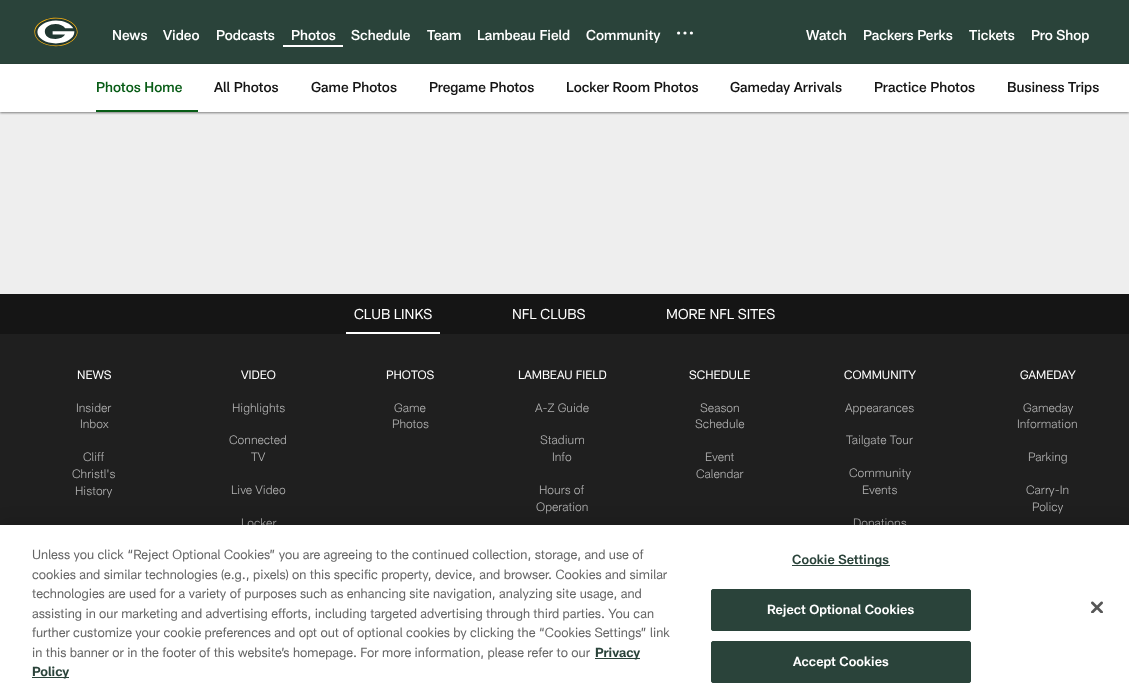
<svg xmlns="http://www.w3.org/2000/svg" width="1129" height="692">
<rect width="100%" height="100%" fill="#eee"/>
<rect width="1129" height="64" fill="#2a433a"/>
<image x="34" y="17" width="44" height="30" href="media/1.png"/>
<text x="112" y="40" style="font-family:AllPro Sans;font-size:14px;font-weight:500;fill:#fff">News</text>
<text x="163" y="40" style="font-family:AllPro Sans;font-size:14px;font-weight:500;fill:#fff">Video</text>
<text x="216" y="40" style="font-family:AllPro Sans;font-size:14px;font-weight:500;fill:#fff">Podcasts</text>
<rect x="283" y="45" width="60" height="2" fill="#fff"/>
<text x="291" y="40" style="font-family:AllPro Sans;font-size:14px;font-weight:500;fill:#fff">Photos</text>
<text x="351" y="40" style="font-family:AllPro Sans;font-size:14px;font-weight:500;fill:#fff">Schedule</text>
<text x="427" y="40" style="font-family:AllPro Sans;font-size:14px;font-weight:500;fill:#fff">Team</text>
<text x="477" y="40" style="font-family:AllPro Sans;font-size:14px;font-weight:500;fill:#fff">Lambeau Field</text>
<text x="586" y="40" style="font-family:AllPro Sans;font-size:14px;font-weight:500;fill:#fff">Community</text>
<circle cx="691.4" cy="33" r="1.6" fill="#fff"/>
<circle cx="685" cy="33" r="1.6" fill="#fff"/>
<circle cx="678.6" cy="33" r="1.6" fill="#fff"/>
<text x="806" y="40" style="font-family:AllPro Sans;font-size:14px;font-weight:500;fill:#fff">Watch</text>
<text x="863" y="40" style="font-family:AllPro Sans;font-size:14px;font-weight:500;fill:#fff">Packers Perks</text>
<text x="969" y="40" style="font-family:AllPro Sans;font-size:14px;font-weight:500;fill:#fff">Tickets</text>
<text x="1031" y="40" style="font-family:AllPro Sans;font-size:14px;font-weight:500;fill:#fff">Pro Shop</text>
<rect y="65" width="1129" height="48" fill="#00000078" filter="blur(1px)"/>
<rect y="64" width="1129" height="48" fill="#fff"/>
<rect x="96" y="110" width="102" height="2" fill="#085c16"/>
<text x="96" y="92" style="font-family:AllPro Sans;font-size:14px;font-weight:500;fill:#085c16">Photos Home</text>
<text x="214" y="92" style="font-family:AllPro Sans;font-size:14px;font-weight:500;fill:#151515">All Photos</text>
<text x="311" y="92" style="font-family:AllPro Sans;font-size:14px;font-weight:500;fill:#151515">Game Photos</text>
<text x="429" y="92" style="font-family:AllPro Sans;font-size:14px;font-weight:500;fill:#151515">Pregame Photos</text>
<text x="566" y="92" style="font-family:AllPro Sans;font-size:14px;font-weight:500;fill:#151515">Locker Room Photos</text>
<text x="730" y="92" style="font-family:AllPro Sans;font-size:14px;font-weight:500;fill:#151515">Gameday Arrivals</text>
<text x="874" y="92" style="font-family:AllPro Sans;font-size:14px;font-weight:500;fill:#151515">Practice Photos</text>
<text x="1007" y="92" style="font-family:AllPro Sans;font-size:14px;font-weight:500;fill:#151515">Business Trips</text>
<rect y="334" width="1129" height="191" fill="#1f1f1f"/>
<rect y="294" width="1129" height="40" fill="#151515"/>
<rect x="346" y="332" width="94" height="2" fill="#fff"/>
<text x="354" y="319" style="font-family:AllPro Sans;font-size:14px;fill:#fff">CLUB LINKS</text>
<text x="512" y="319" style="font-family:AllPro Sans;font-size:14px;fill:#fff">NFL CLUBS</text>
<text x="666" y="319" style="font-family:AllPro Sans;font-size:14px;fill:#fff">MORE NFL SITES</text>
<text x="77" y="379" style="font-family:AllPro Sans;font-size:12px;fill:#fff">NEWS</text>
<text x="76" y="412" style="font-family:AllPro Sans;font-size:12px;font-weight:300;fill:#b2b2b2">Insider</text>
<text x="80" y="428" style="font-family:AllPro Sans;font-size:12px;font-weight:300;fill:#b2b2b2">Inbox</text>
<text x="83" y="461" style="font-family:AllPro Sans;font-size:12px;font-weight:300;fill:#b2b2b2">Cliff</text>
<text x="72" y="478" style="font-family:AllPro Sans;font-size:12px;font-weight:300;fill:#b2b2b2">Christl's</text>
<text x="75" y="495" style="font-family:AllPro Sans;font-size:12px;font-weight:300;fill:#b2b2b2">History</text>
<text x="241" y="379" style="font-family:AllPro Sans;font-size:12px;fill:#fff">VIDEO</text>
<text x="232" y="412" style="font-family:AllPro Sans;font-size:12px;font-weight:300;fill:#b2b2b2">Highlights</text>
<text x="229" y="444" style="font-family:AllPro Sans;font-size:12px;font-weight:300;fill:#b2b2b2">Connected</text>
<text x="251" y="461" style="font-family:AllPro Sans;font-size:12px;font-weight:300;fill:#b2b2b2">TV</text>
<text x="231" y="494" style="font-family:AllPro Sans;font-size:12px;font-weight:300;fill:#b2b2b2">Live Video</text>
<text x="241" y="527" style="font-family:AllPro Sans;font-size:12px;font-weight:300;fill:#b2b2b2">Locker</text>
<text x="386" y="379" style="font-family:AllPro Sans;font-size:12px;fill:#fff">PHOTOS</text>
<text x="394" y="412" style="font-family:AllPro Sans;font-size:12px;font-weight:300;fill:#b2b2b2">Game</text>
<text x="392" y="428" style="font-family:AllPro Sans;font-size:12px;font-weight:300;fill:#b2b2b2">Photos</text>
<text x="518" y="379" style="font-family:AllPro Sans;font-size:12px;fill:#fff">LAMBEAU FIELD</text>
<text x="535" y="412" style="font-family:AllPro Sans;font-size:12px;font-weight:300;fill:#b2b2b2">A-Z Guide</text>
<text x="540" y="444" style="font-family:AllPro Sans;font-size:12px;font-weight:300;fill:#b2b2b2">Stadium</text>
<text x="552" y="461" style="font-family:AllPro Sans;font-size:12px;font-weight:300;fill:#b2b2b2">Info</text>
<text x="539" y="494" style="font-family:AllPro Sans;font-size:12px;font-weight:300;fill:#b2b2b2">Hours of</text>
<text x="536" y="511" style="font-family:AllPro Sans;font-size:12px;font-weight:300;fill:#b2b2b2">Operation</text>
<text x="689" y="379" style="font-family:AllPro Sans;font-size:12px;fill:#fff">SCHEDULE</text>
<text x="700" y="412" style="font-family:AllPro Sans;font-size:12px;font-weight:300;fill:#b2b2b2">Season</text>
<text x="695" y="428" style="font-family:AllPro Sans;font-size:12px;font-weight:300;fill:#b2b2b2">Schedule</text>
<text x="705" y="461" style="font-family:AllPro Sans;font-size:12px;font-weight:300;fill:#b2b2b2">Event</text>
<text x="696" y="478" style="font-family:AllPro Sans;font-size:12px;font-weight:300;fill:#b2b2b2">Calendar</text>
<text x="844" y="379" style="font-family:AllPro Sans;font-size:12px;fill:#fff">COMMUNITY</text>
<text x="845" y="412" style="font-family:AllPro Sans;font-size:12px;font-weight:300;fill:#b2b2b2">Appearances</text>
<text x="846" y="444" style="font-family:AllPro Sans;font-size:12px;font-weight:300;fill:#b2b2b2">Tailgate Tour</text>
<text x="849" y="477" style="font-family:AllPro Sans;font-size:12px;font-weight:300;fill:#b2b2b2">Community</text>
<text x="862" y="494" style="font-family:AllPro Sans;font-size:12px;font-weight:300;fill:#b2b2b2">Events</text>
<text x="853" y="527" style="font-family:AllPro Sans;font-size:12px;font-weight:300;fill:#b2b2b2">Donations</text>
<text x="1020" y="379" style="font-family:AllPro Sans;font-size:12px;fill:#fff">GAMEDAY</text>
<text x="1023" y="412" style="font-family:AllPro Sans;font-size:12px;font-weight:300;fill:#b2b2b2">Gameday</text>
<text x="1017" y="428" style="font-family:AllPro Sans;font-size:12px;font-weight:300;fill:#b2b2b2">Information</text>
<text x="1028" y="461" style="font-family:AllPro Sans;font-size:12px;font-weight:300;fill:#b2b2b2">Parking</text>
<text x="1026" y="494" style="font-family:AllPro Sans;font-size:12px;font-weight:300;fill:#b2b2b2">Carry-In</text>
<text x="1032" y="511" style="font-family:AllPro Sans;font-size:12px;font-weight:300;fill:#b2b2b2">Policy</text>
<rect y="525" width="1129" height="167" fill="#00000033" filter="blur(9px)"/>
<rect y="525" width="1129" height="167" fill="#fff"/>
<text x="32" y="559" style="font-family:AllPro Sans;font-size:13px;fill:#666">Unless you click “Reject Optional Cookies” you are agreeing to the continued collection, storage, and use of</text>
<text x="32" y="579" style="font-family:AllPro Sans;font-size:13px;fill:#666">cookies and similar technologies (e.g., pixels) on this specific property, device, and browser. Cookies and similar</text>
<text x="32" y="598" style="font-family:AllPro Sans;font-size:13px;fill:#666">technologies are used for a variety of purposes such as enhancing site navigation, analyzing site usage, and</text>
<text x="32" y="618" style="font-family:AllPro Sans;font-size:13px;fill:#666">assisting in our marketing and advertising efforts, including targeted advertising through third parties. You can</text>
<text x="32" y="637" style="font-family:AllPro Sans;font-size:13px;fill:#666">further customize your cookie preferences and opt out of optional cookies by clicking the “Cookies Settings” link</text>
<text x="32" y="657" style="font-family:AllPro Sans;font-size:13px;fill:#666">in this banner or in the footer of this website’s homepage. For more information, please refer to our</text>
<rect x="595" y="658" width="45" height="1" fill="#2a433a"/>
<text x="595" y="657" style="font-family:AllPro Sans;font-size:13px;font-weight:bold;fill:#2a433a">Privacy</text>
<rect x="32" y="677" width="37" height="1" fill="#2a433a"/>
<text x="32" y="676" style="font-family:AllPro Sans;font-size:13px;font-weight:bold;fill:#2a433a">Policy</text>
<rect x="792" y="565" width="98" height="1" fill="#2a433a"/>
<text x="792" y="564" style="font-family:AllPro Sans;font-size:13px;font-weight:600;letter-spacing:0.1px;fill:#2a433a">Cookie Settings</text>
<rect x="711.5" y="589.5" width="259" height="41" rx="1.5" fill="#2a433a" stroke="#2a433a"/>
<text x="767" y="614" style="font-family:AllPro Sans;font-size:13px;font-weight:600;letter-spacing:0.1px;fill:#fff">Reject Optional Cookies</text>
<rect x="711.5" y="641.5" width="259" height="41" rx="1.5" fill="#2a433a" stroke="#2a433a"/>
<text x="793" y="666" style="font-family:AllPro Sans;font-size:13px;font-weight:600;letter-spacing:0.1px;fill:#fff">Accept Cookies</text>
<image x="1091" y="601" width="12" height="12" href="media/2.png"/>
</svg>
